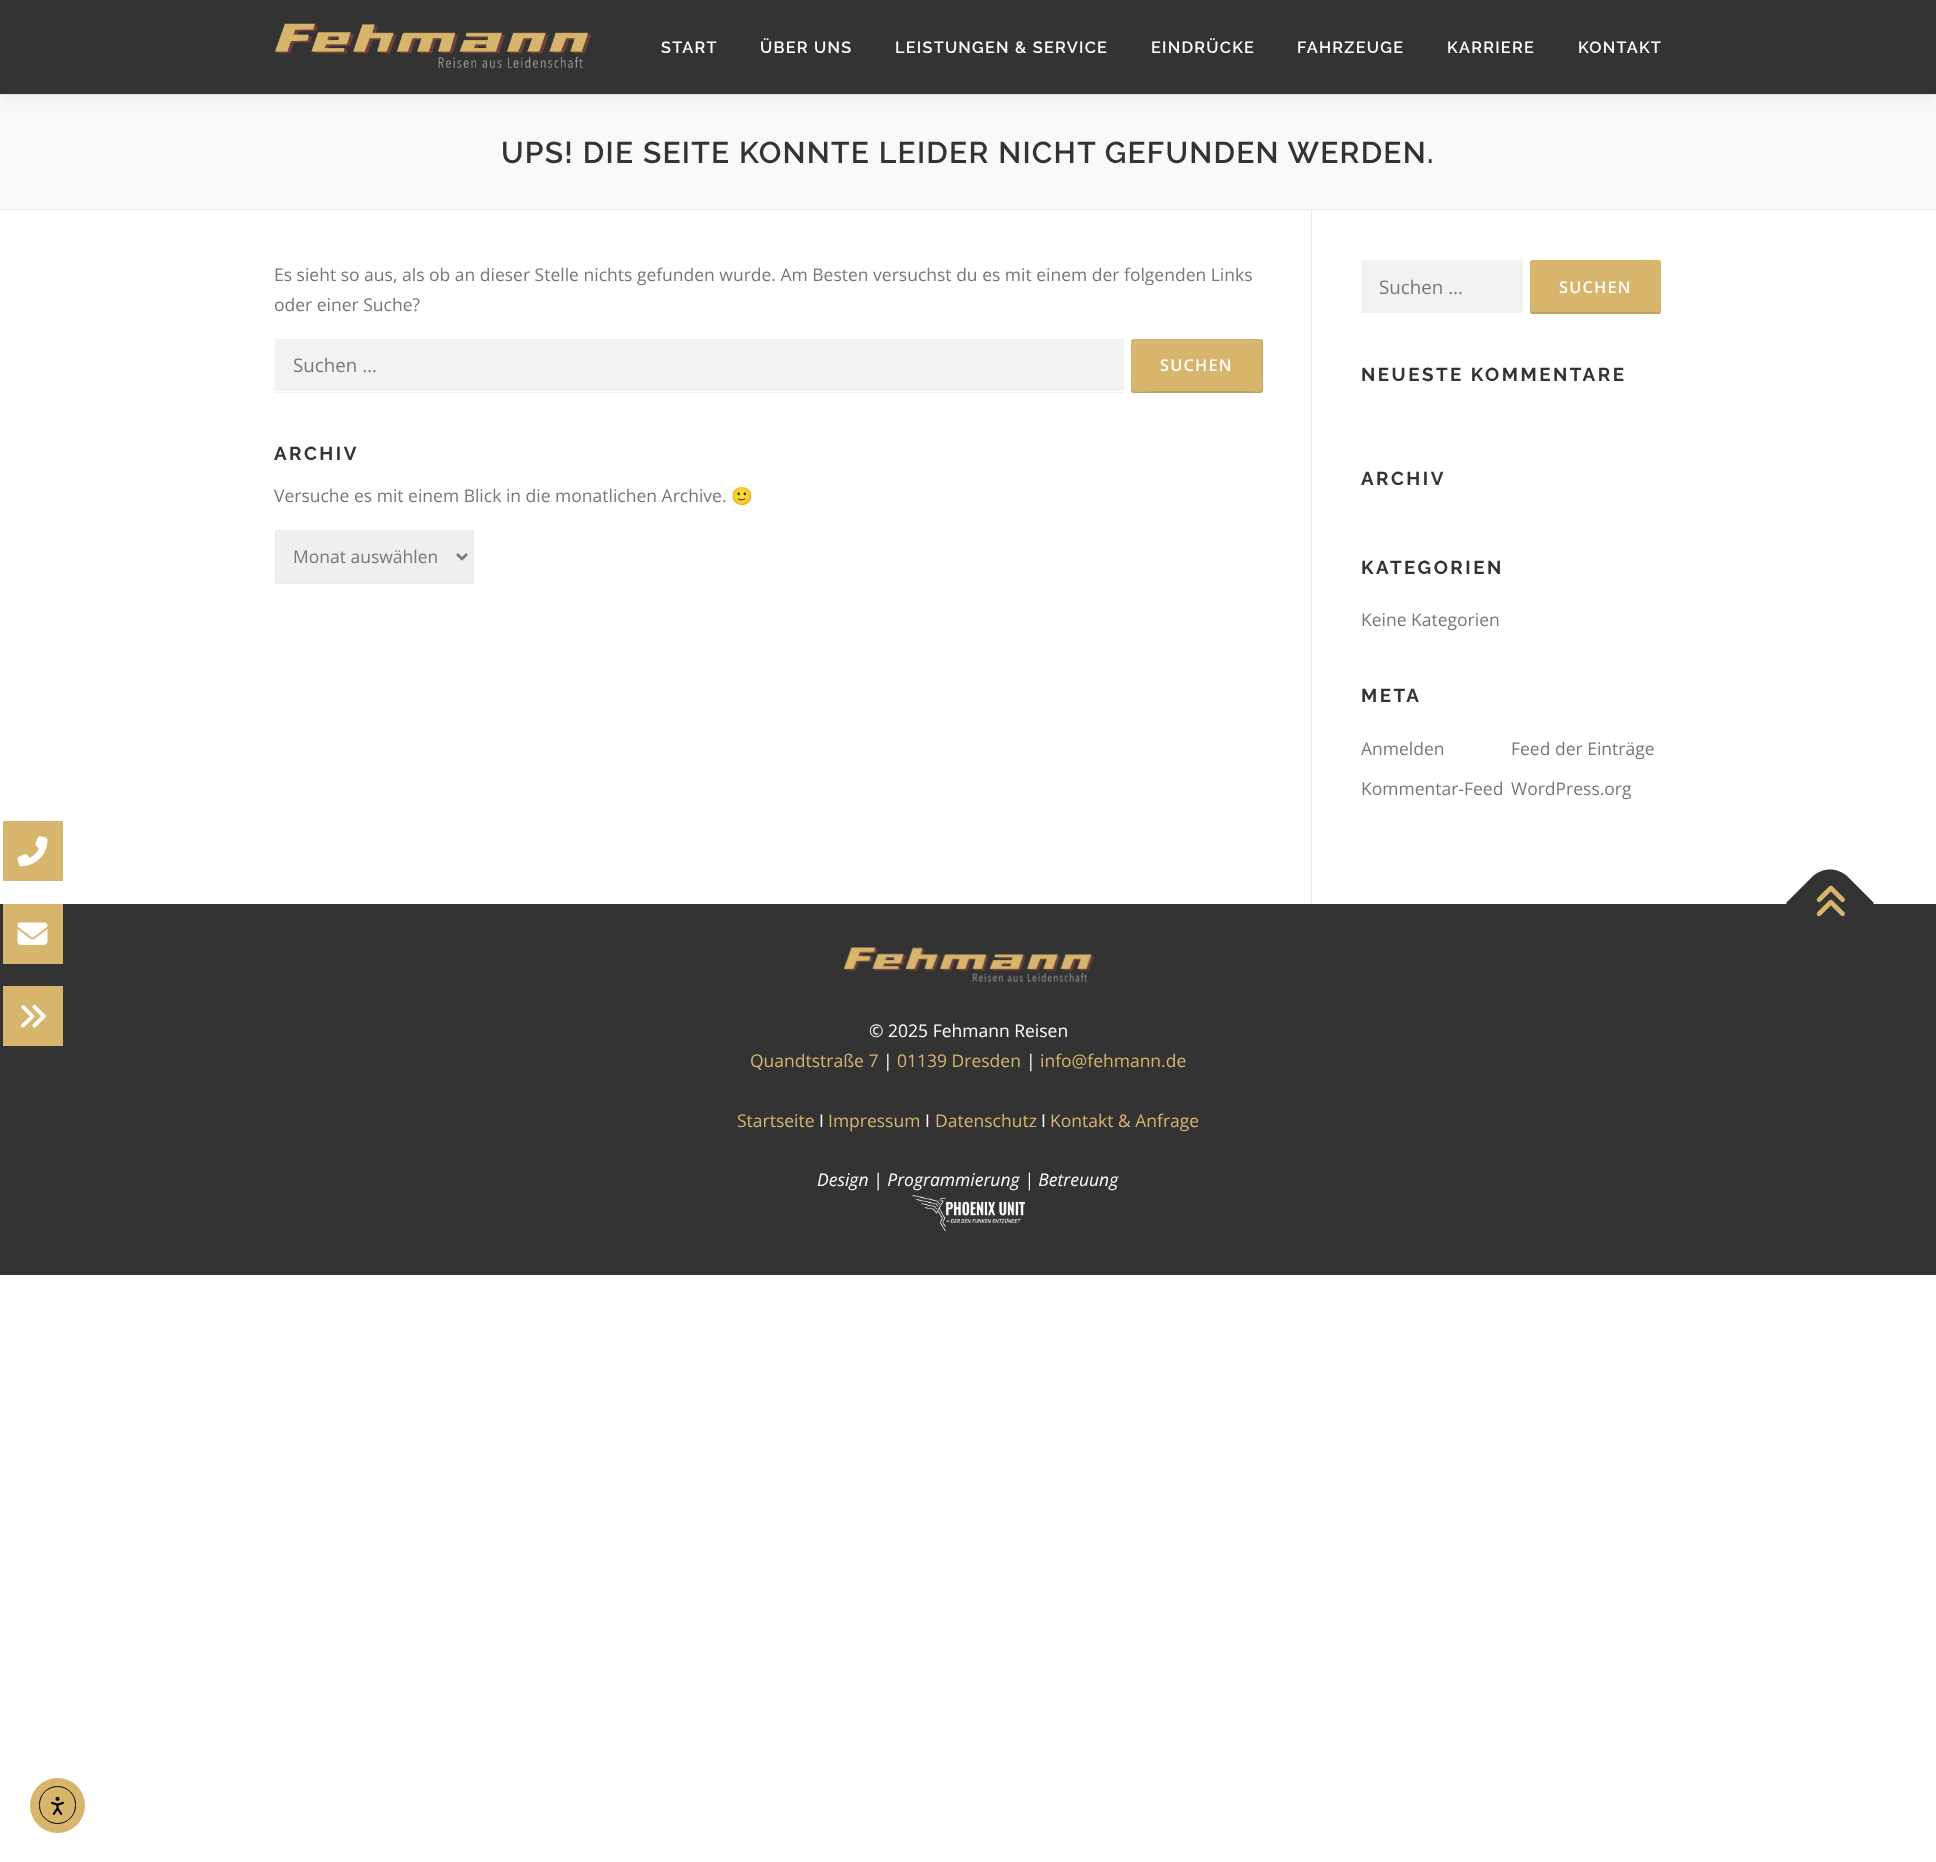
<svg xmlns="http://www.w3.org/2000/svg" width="1936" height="1862">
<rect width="100%" height="100%" fill="#fff"/>
<rect x="3" y="821" width="60" height="60" fill="#d7b56d"/>
<image x="17" y="836" width="31" height="31" href="media/1.png"/>
<rect y="904" width="1936" height="371" fill="#333"/>
<rect x="3" y="904" width="60" height="60" fill="#d7b56d"/>
<image x="17" y="922" width="31" height="23" href="media/2.png"/>
<rect x="3" y="986" width="60" height="60" fill="#d7b56d"/>
<image x="21" y="1005" width="25" height="23" href="media/3.png"/>
<rect y="95" width="1936" height="114" fill="#f8f9f9"/>
<rect y="94" width="1936" height="1" fill="#e9e9e9"/>
<rect y="6" width="1936" height="94" fill="#3232320f" filter="blur(6px)"/>
<rect width="1936" height="94" fill="#333"/>
<image x="275" y="23" width="317" height="45" href="media/4.png"/>
<text x="661" y="53" style="font-family:Raleway;font-size:16.25px;font-weight:600;letter-spacing:1.25px;fill:#fff">START</text>
<text x="760" y="53" style="font-family:Raleway;font-size:16.25px;font-weight:600;letter-spacing:1.25px;fill:#fff">ÜBER UNS</text>
<text x="895" y="53" style="font-family:Raleway;font-size:16.25px;font-weight:600;letter-spacing:1.25px;fill:#fff">LEISTUNGEN &amp; SERVICE</text>
<text x="1151" y="53" style="font-family:Raleway;font-size:16.25px;font-weight:600;letter-spacing:1.25px;fill:#fff">EINDRÜCKE</text>
<text x="1297" y="53" style="font-family:Raleway;font-size:16.25px;font-weight:600;letter-spacing:1.25px;fill:#fff">FAHRZEUGE</text>
<text x="1447" y="53" style="font-family:Raleway;font-size:16.25px;font-weight:600;letter-spacing:1.25px;fill:#fff">KARRIERE</text>
<text x="1578" y="53" style="font-family:Raleway;font-size:16.25px;font-weight:600;letter-spacing:1.25px;fill:#fff">KONTAKT</text>
<rect y="209" width="1936" height="1" fill="#e9e9e9"/>
<text x="501" y="163" style="font-family:Raleway;font-size:30px;font-weight:600;letter-spacing:1.25px;fill:#333">UPS! DIE SEITE KONNTE LEIDER NICHT GEFUNDEN WERDEN.</text>
<text x="274" y="281" style="font-family:Open Sans;font-size:17.5px;fill:#777">Es sieht so aus, als ob an dieser Stelle nichts gefunden wurde. Am Besten versuchst du es mit einem der folgenden Links</text>
<text x="274" y="311" style="font-family:Open Sans;font-size:17.5px;fill:#777">oder einer Suche?</text>
<rect x="275" y="339" width="849" height="54" fill="#f2f2f2"/>
<rect x="275" y="391" width="849" height="1" fill="#fff"/>
<text x="293" y="372" style="font-family:Open Sans;font-size:18.75px;fill:#777">Suchen …</text>
<rect x="1131" y="339" width="132" height="54" rx="2.5" fill="#d7b56d"/>
<path d="M1131 389v1c0 2 1 3 3 3h126c2 0 3-1 3-3v-48c0-1 0-2-1-3v34c0 24 4 18-23 18h-84c-3 0-24 3-24-2z" fill="#0000001a"/>
<text x="1160" y="371" style="font-family:Open Sans;font-size:16.25px;font-weight:600;letter-spacing:1.25px;fill:#fff">SUCHEN</text>
<text x="274" y="460" style="font-family:Raleway;font-size:18.75px;font-weight:bold;letter-spacing:2.5px;fill:#333">ARCHIV</text>
<text x="274" y="502" style="font-family:Open Sans;font-size:17.5px;fill:#777">Versuche es mit einem Blick in die monatlichen Archive.</text>
<text x="731" y="502" style="font-family:Noto Color Emoji;font-size:17.5px;fill:#777">🙂</text>
<rect x="275.5" y="530.5" width="198" height="53" fill="#efefef" stroke="#e9e9e9"/>
<path d="M457 554l5 5l5-5" fill="none" stroke="#777" stroke-width="2.5"/>
<text x="293" y="563" style="font-family:Open Sans;font-size:17.5px;fill:#777">Monat auswählen</text>
<rect x="1311" y="210" width="1" height="694" fill="#e9e9e9"/>
<rect x="1361" y="260" width="162" height="53" fill="#f2f2f2"/>
<text x="1379" y="294" style="font-family:Open Sans;font-size:18.75px;fill:#777">Suchen …</text>
<rect x="1530" y="260" width="131" height="54" rx="2.5" fill="#d7b56d"/>
<path d="M1530 310v2c0 1 1 2 2 2h126c2 0 3-1 3-2v-2c0 1-1 2-2 2h-127c-1 0-2-1-2-2z" fill="#0000001a"/>
<text x="1559" y="293" style="font-family:Open Sans;font-size:16.25px;font-weight:600;letter-spacing:1.25px;fill:#fff">SUCHEN</text>
<text x="1361" y="381" style="font-family:Raleway;font-size:18.75px;font-weight:bold;letter-spacing:2.5px;fill:#333">NEUESTE KOMMENTARE</text>
<text x="1361" y="485" style="font-family:Raleway;font-size:18.75px;font-weight:bold;letter-spacing:2.5px;fill:#333">ARCHIV</text>
<text x="1361" y="574" style="font-family:Raleway;font-size:18.75px;font-weight:bold;letter-spacing:2.5px;fill:#333">KATEGORIEN</text>
<text x="1361" y="626" style="font-family:Open Sans;font-size:17.5px;fill:#777">Keine Kategorien</text>
<text x="1361" y="702" style="font-family:Raleway;font-size:18.75px;font-weight:bold;letter-spacing:2.5px;fill:#333">META</text>
<text x="1361" y="755" style="font-family:Open Sans;font-size:17.5px;fill:#777">Anmelden</text>
<text x="1511" y="755" style="font-family:Open Sans;font-size:17.5px;fill:#777">Feed der Einträge</text>
<text x="1361" y="795" style="font-family:Open Sans;font-size:17.5px;fill:#777">Kommentar-Feed</text>
<text x="1511" y="795" style="font-family:Open Sans;font-size:17.5px;fill:#777">WordPress.org</text>
<path d="M1786 903l26-26c10-10 26-10 36 0l26 26l-44 44z" fill="#333"/>
<image x="1816" y="885" width="29" height="32" href="media/5.png"/>
<image x="843" y="947" width="251" height="36" href="media/6.png"/>
<text x="869" y="1037" style="font-family:Open Sans;font-size:17.5px;fill:#fff">© 2025 Fehmann Reisen</text>
<text x="750" y="1067" style="font-family:Open Sans;font-size:17.5px;fill:#d7b56d">Quandtstraße 7</text>
<text x="883" y="1067" style="font-family:Open Sans;font-size:17.5px;fill:#fff">|</text>
<text x="897" y="1067" style="font-family:Open Sans;font-size:17.5px;fill:#d7b56d">01139 Dresden</text>
<text x="1026" y="1067" style="font-family:Open Sans;font-size:17.5px;fill:#fff">|</text>
<text x="1040" y="1067" style="font-family:Open Sans;font-size:17.5px;fill:#d7b56d">info@fehmann.de</text>
<text x="737" y="1127" style="font-family:Open Sans;font-size:17.5px;fill:#d7b56d">Startseite</text>
<text x="819" y="1127" style="font-family:Open Sans;font-size:17.5px;fill:#fff">I</text>
<text x="828" y="1127" style="font-family:Open Sans;font-size:17.5px;fill:#d7b56d">Impressum</text>
<text x="925" y="1127" style="font-family:Open Sans;font-size:17.5px;fill:#fff">I</text>
<text x="935" y="1127" style="font-family:Open Sans;font-size:17.5px;fill:#d7b56d">Datenschutz</text>
<text x="1041" y="1127" style="font-family:Open Sans;font-size:17.5px;fill:#fff">I</text>
<text x="1050" y="1127" style="font-family:Open Sans;font-size:17.5px;fill:#d7b56d">Kontakt &amp; Anfrage</text>
<text x="817" y="1186" style="font-family:Open Sans;font-size:17.5px;font-style:italic;fill:#fff">Design | Programmierung | Betreuung</text>
<image x="912" y="1195" width="113" height="37" href="media/7.png"/>
<circle cx="57.5" cy="1805.5" r="27.5" fill="#d7b56d"/>
<rect x="39.5" y="1786.5" width="36" height="37" rx="18" fill="none" stroke="#000"/>
<image x="51" y="1796" width="13" height="19" href="media/8.png"/>
</svg>
